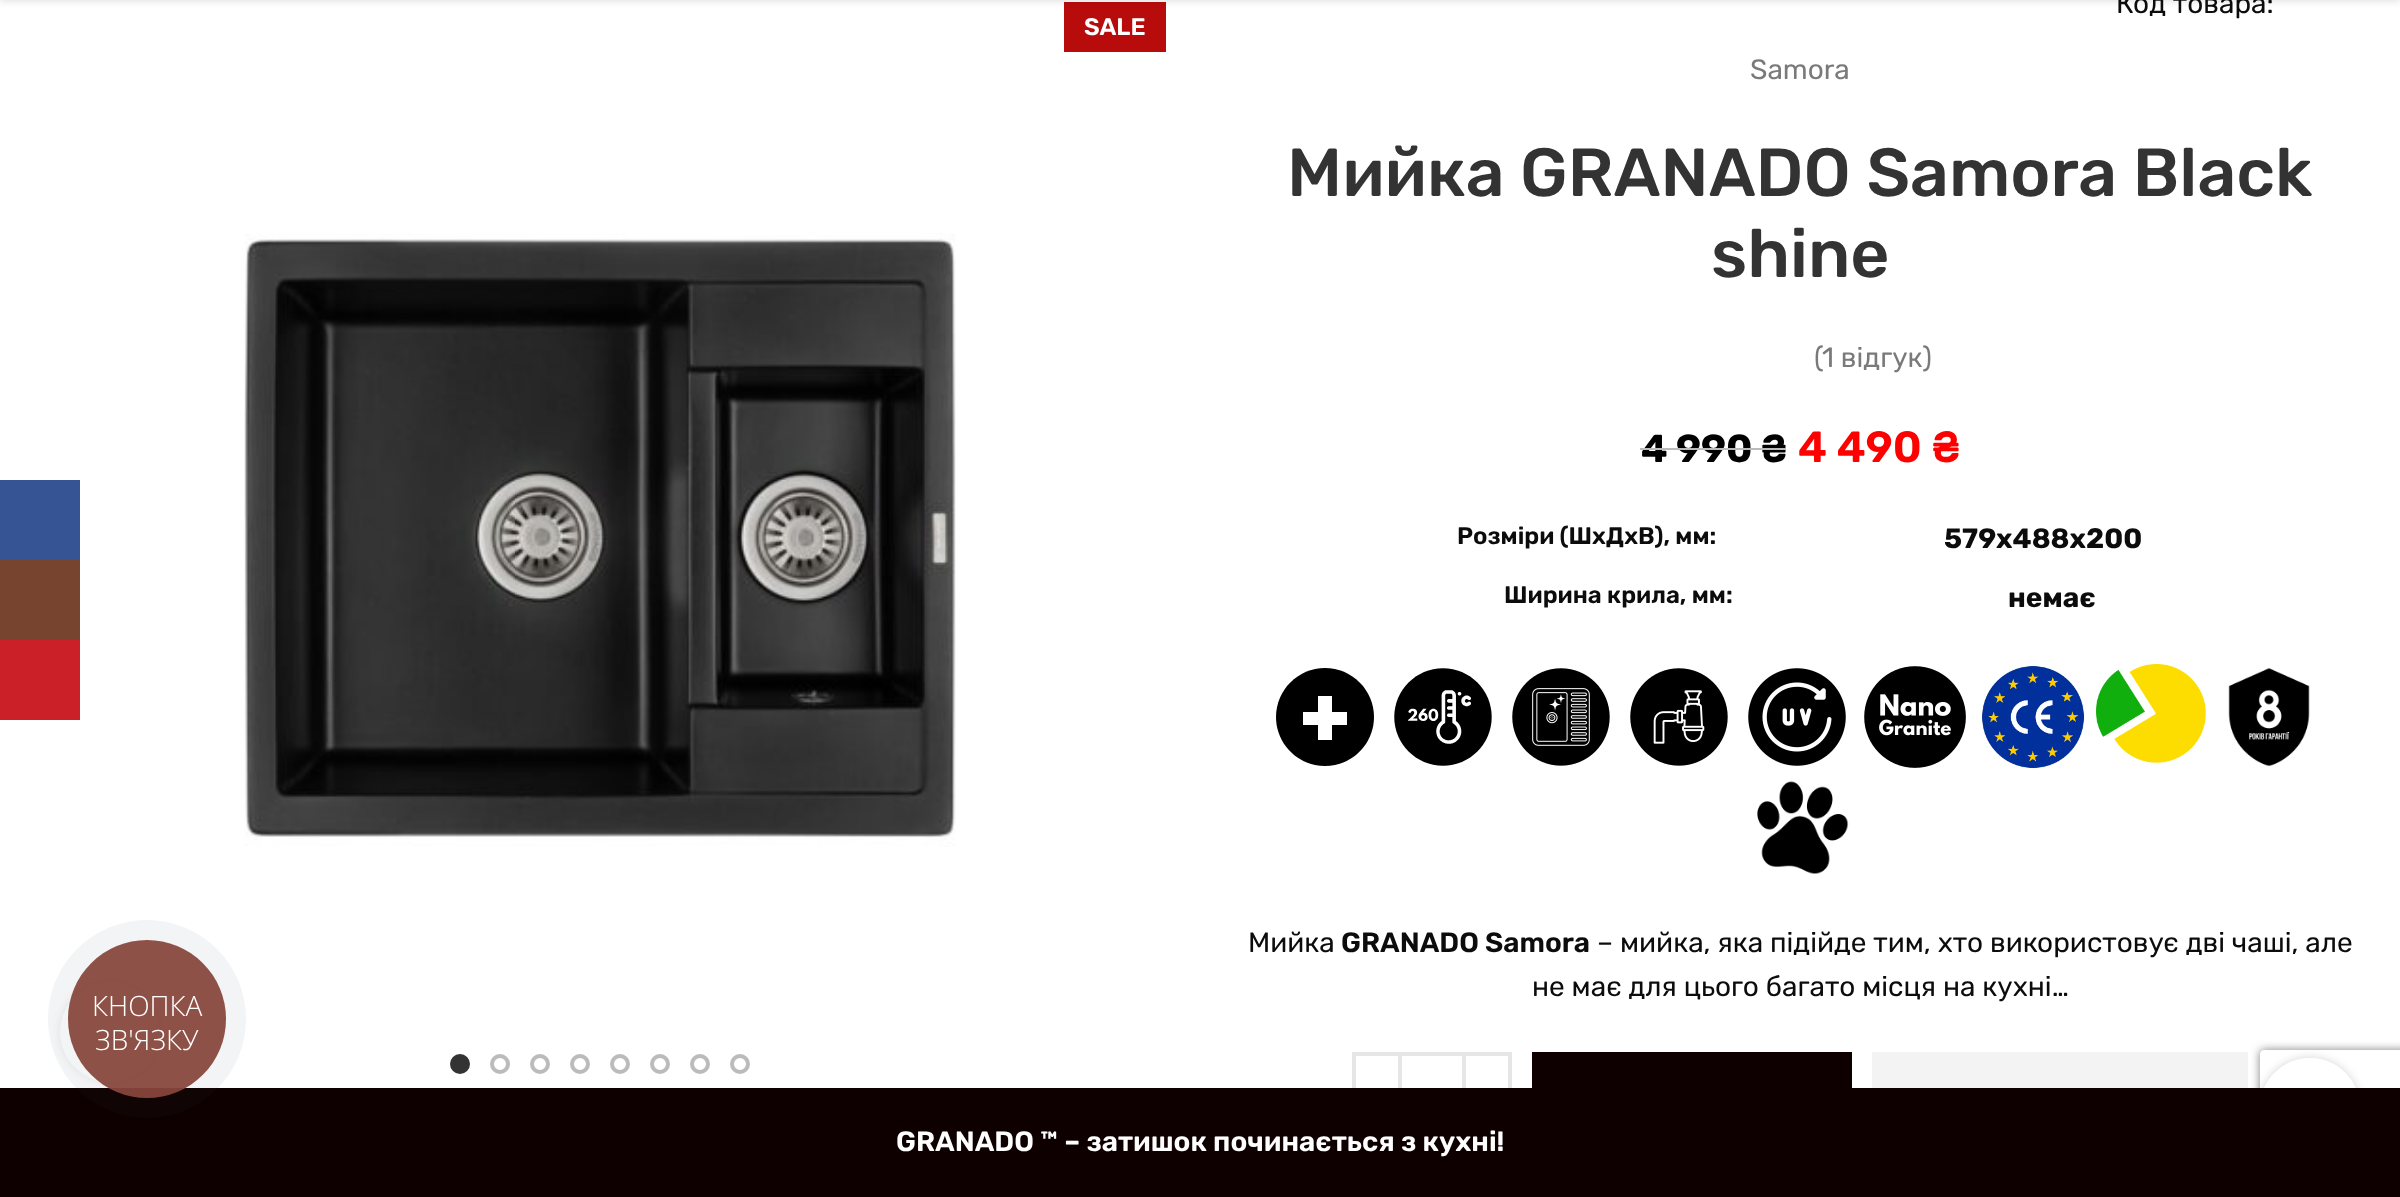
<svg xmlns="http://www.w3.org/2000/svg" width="2400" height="1197">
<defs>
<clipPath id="clip1"><path d="M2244 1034h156v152h-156zm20 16h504c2 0 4 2 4 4v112c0 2-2 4-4 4h-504c-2 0-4-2-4-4v-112c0-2 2-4 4-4z" clip-rule="evenodd"/></clipPath>
<clipPath id="clip2"><path d="M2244 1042h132v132h-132zm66 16c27.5 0 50 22.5 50 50c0 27.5-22.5 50-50 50c-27.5 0-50-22.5-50-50c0-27.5 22.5-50 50-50z" clip-rule="evenodd"/></clipPath>
</defs>
<rect width="100%" height="100%" fill="#fff"/>
<rect y="480" width="80" height="80" fill="#365493"/>
<rect y="560" width="80" height="80" fill="#774430"/>
<rect y="640" width="80" height="80" fill="#cb2027"/>
<rect x="1064" y="2" width="102" height="50" fill="#b80c0c"/>
<rect y="-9" width="2400" height="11" fill="#0000001a" filter="blur(3px)"/>
<text x="1084" y="35" style="font-family:Rubik;font-size:24px;font-weight:600;fill:#fff">SALE</text>
<rect x="60" y="982" width="100" height="100" rx="50" fill="#00000014" filter="blur(5px)"/>
<circle cx="110" cy="1032" r="50" fill="#fff"/>
<image x="244" y="233" width="712" height="614" href="media/1.png"/>
<circle cx="460" cy="1064" r="8" fill="#333" stroke="#333" stroke-width="4"/>
<circle cx="500" cy="1064" r="8" fill="none" stroke="#bbb" stroke-width="4"/>
<circle cx="540" cy="1064" r="8" fill="none" stroke="#bbb" stroke-width="4"/>
<circle cx="580" cy="1064" r="8" fill="none" stroke="#bbb" stroke-width="4"/>
<circle cx="620" cy="1064" r="8" fill="none" stroke="#bbb" stroke-width="4"/>
<circle cx="660" cy="1064" r="8" fill="none" stroke="#bbb" stroke-width="4"/>
<circle cx="700" cy="1064" r="8" fill="none" stroke="#bbb" stroke-width="4"/>
<circle cx="740" cy="1064" r="8" fill="none" stroke="#bbb" stroke-width="4"/>
<text x="2116" y="13" style="font-family:Rubik;font-size:28px;fill:#0c0c0c">Код товара:</text>
<text x="1750" y="79" style="font-family:Rubik;font-size:28px;fill:#7a7a7a">Samora</text>
<text x="1287" y="196" style="font-family:Rubik;font-size:68px;font-weight:500;fill:#333">Мийка GRANADO Samora Black</text>
<text x="1711" y="277" style="font-family:Rubik;font-size:68px;font-weight:500;fill:#333">shine</text>
<text x="1814" y="367" style="font-family:Rubik;font-size:28px;fill:#7a7a7a">(</text>
<text x="1822" y="367" style="font-family:Rubik;font-size:28px;fill:#7a7a7a">1 відгук)</text>
<text x="1641" y="462" style="font-family:Rubik;font-size:39px;font-weight:bold;fill:#000">4 990 ₴</text>
<rect x="1640" y="448" width="146" height="2" fill="#bbb"/>
<text x="1798" y="462" style="font-family:Rubik;font-size:43.5px;font-weight:600;fill:#f00">4 490 ₴</text>
<text x="1457" y="544" style="font-family:Rubik;font-size:24px;font-weight:600;fill:#0c0c0c">Розміри (ШхДхВ), мм:</text>
<text x="1944" y="548" style="font-family:Rubik;font-size:28px;font-weight:bold;fill:#0c0c0c">579х488х200</text>
<text x="1504" y="603" style="font-family:Rubik;font-size:24px;font-weight:600;fill:#0c0c0c">Ширина крила, мм:</text>
<text x="2008" y="607" style="font-family:Rubik;font-size:28px;font-weight:bold;fill:#0c0c0c">немає</text>
<path d="M1325 668c-27 0-49 22-49 49c0 27 22 49 49 49c27 0 49-22 49-49c0-27-22-49-49-49z" fill="#000"/>
<path d="M1332 740h-14v-15h-15v-13h15v-16h14v16h15v13h-15z" fill="#fff"/>
<image x="1394" y="668" width="98" height="98" href="media/2.png"/>
<image x="1512" y="668" width="98" height="98" href="media/3.png"/>
<image x="1630" y="668" width="98" height="98" href="media/4.png"/>
<image x="1748" y="668" width="98" height="98" href="media/5.png"/>
<image x="1864" y="666" width="102" height="102" href="media/6.png"/>
<image x="1982" y="666" width="103" height="103" href="media/7.png"/>
<image x="2096" y="664" width="110" height="99" href="media/8.png"/>
<image x="2228" y="667" width="82" height="100" href="media/9.png"/>
<image x="1757" y="781" width="92" height="93" href="media/10.png"/>
<text x="1248" y="952" style="font-family:Rubik;font-size:28px;fill:#0c0c0c">Мийка</text>
<text x="1341" y="952" style="font-family:Rubik;font-size:28px;font-weight:600;fill:#0c0c0c">GRANADO Samora</text>
<text x="1597" y="952" style="font-family:Rubik;font-size:28px;fill:#0c0c0c">– мийка, яка підійде тим, хто використовує дві чаші, але</text>
<text x="1532" y="996" style="font-family:Rubik;font-size:28px;fill:#0c0c0c">не має для цього багато місця на кухні…</text>
<rect x="1354" y="1054" width="46" height="80" fill="none" stroke="#e6e6e6" stroke-width="4"/>
<rect x="1402" y="1052" width="60" height="4" fill="#e6e6e6"/>
<rect x="1464" y="1054" width="46" height="80" fill="none" stroke="#e6e6e6" stroke-width="4"/>
<rect x="1532" y="1052" width="320" height="36" fill="#0f0000"/>
<rect x="1872" y="1052" width="376" height="36" fill="#f3f3f3"/>
<g clip-path="url(#clip1)">
<rect x="2260" y="1050" width="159" height="120" rx="4" fill="#808080" filter="blur(5px)"/>
</g>
<g clip-path="url(#clip2)">
<rect x="2260" y="1058" width="100" height="100" rx="50" fill="#0000002b" filter="blur(5px)"/>
</g>
<circle cx="2310" cy="1108" r="50" fill="#ffffffe6"/>
<rect y="1088" width="2400" height="109" fill="#0f0000"/>
<circle cx="147" cy="1019" r="99" fill="#2a405d0f"/>
<circle cx="147" cy="1019" r="79" fill="#87463cf0"/>
<text x="92" y="1016" style="font-family:Open Sans;font-size:28px;font-weight:300;fill:#fff">КНОПКА</text>
<text x="95" y="1050" style="font-family:Open Sans;font-size:28px;font-weight:300;fill:#fff">ЗВ'ЯЗКУ</text>
<text x="896" y="1151" style="font-family:Rubik;font-size:28px;font-weight:600;fill:#fff">GRANADO ™ – затишок починається з кухні!</text>
</svg>
